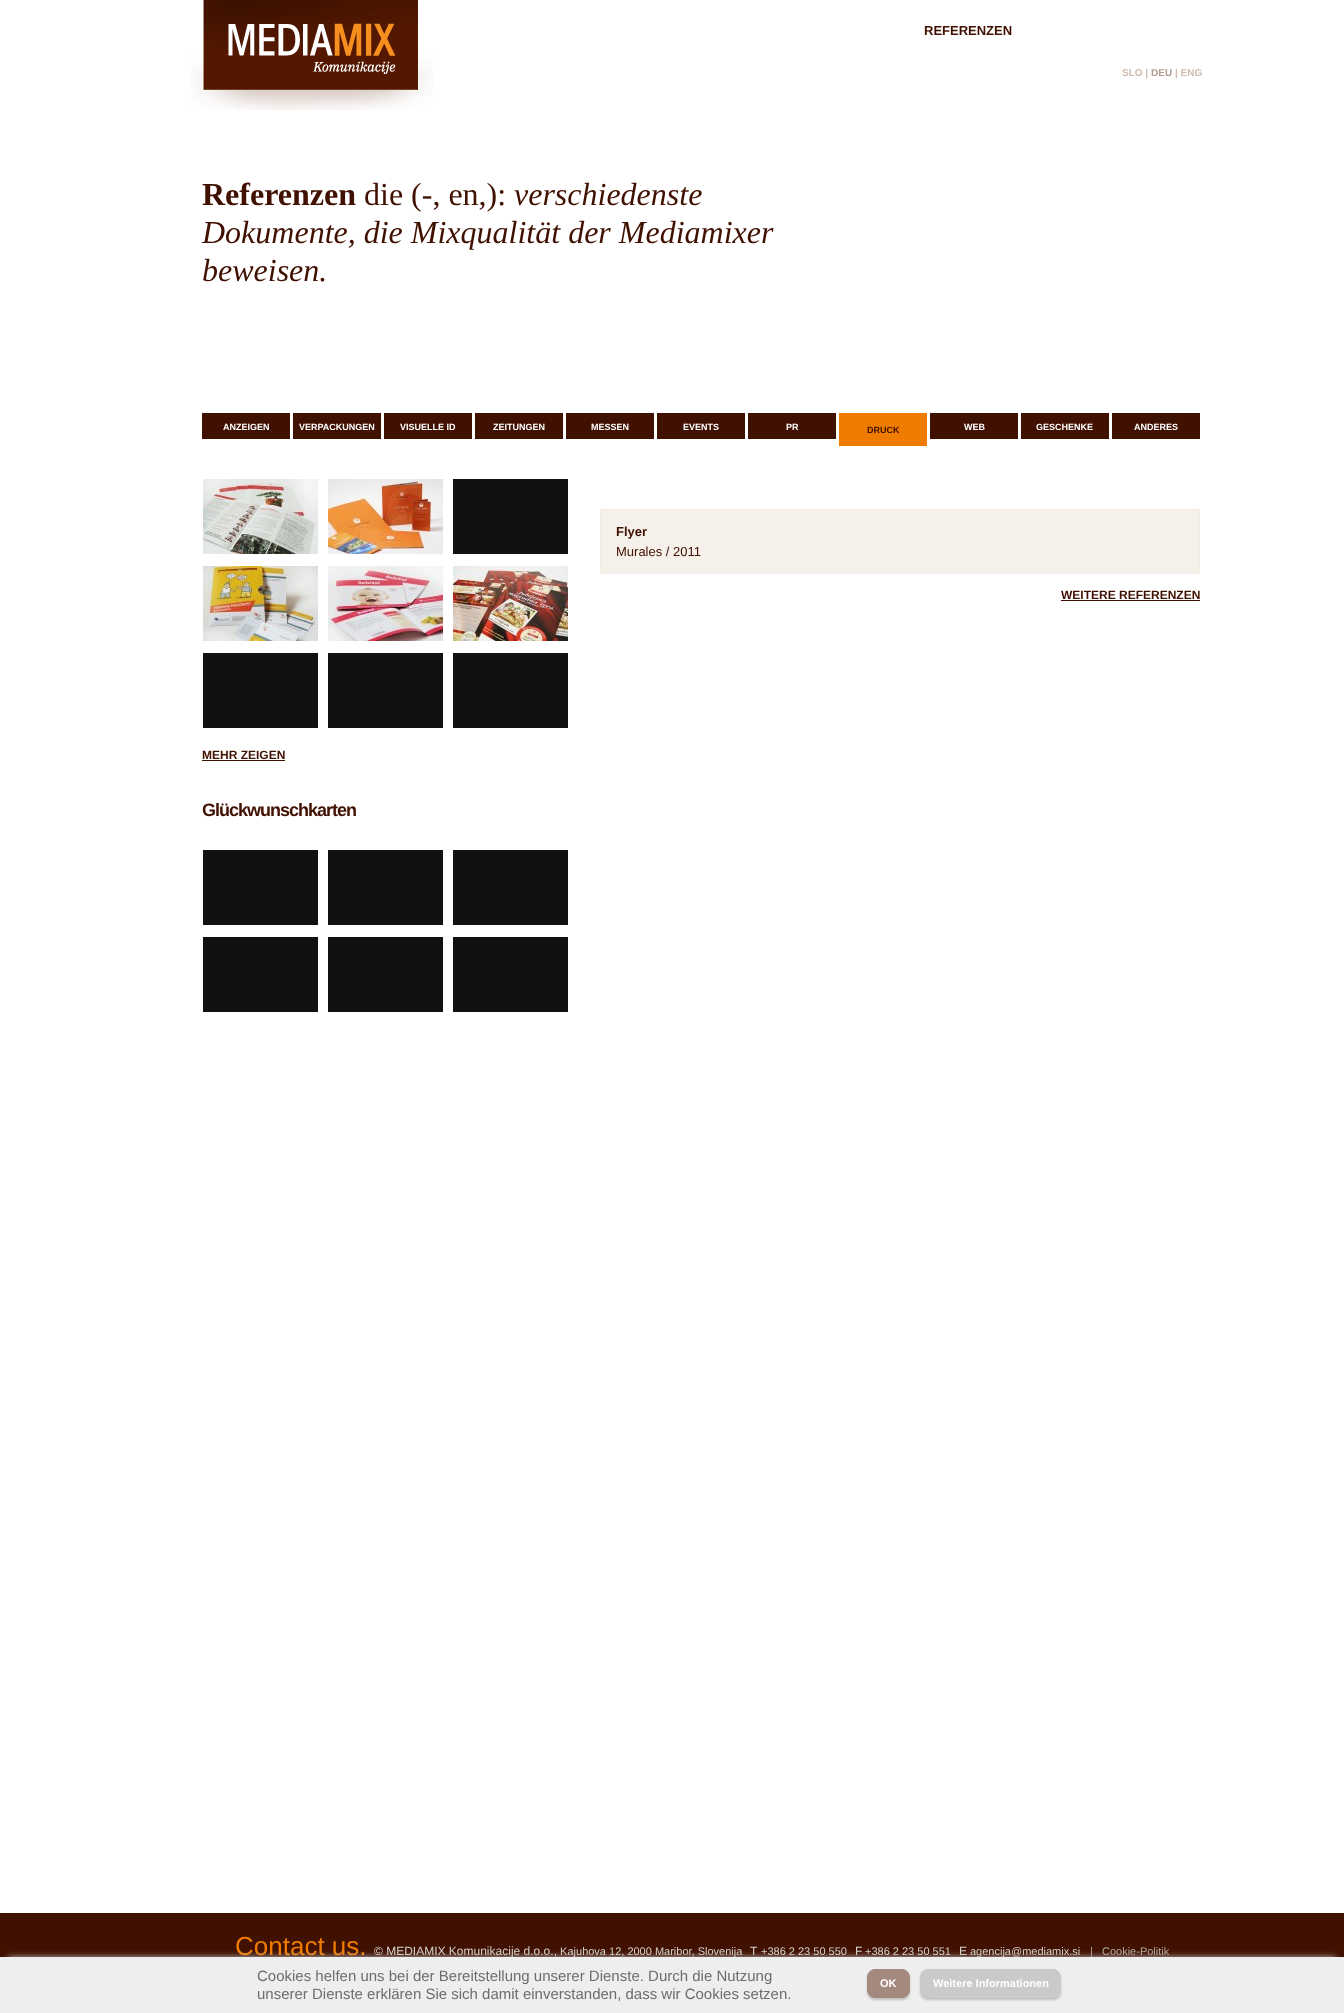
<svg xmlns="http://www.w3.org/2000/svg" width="1344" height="2013">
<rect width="100%" height="100%" fill="#fff"/>
<image x="191" y="0" width="242" height="110" href="media/1.png"/>
<text x="924" y="35" style="font-family:Liberation Sans;font-size:13px;font-weight:bold;fill:#401000">REFERENZEN</text>
<text x="1122" y="76" style="font-family:Liberation Sans;font-size:10px;font-weight:bold;fill:#cdbbb1">SLO |</text>
<text x="1151" y="76" style="font-family:Liberation Sans;font-size:10px;font-weight:bold;fill:#b39a8c">DEU</text>
<text x="1175" y="76" style="font-family:Liberation Sans;font-size:10px;font-weight:bold;fill:#cdbbb1">| ENG</text>
<text x="202" y="205" style="font-family:Liberation Serif;font-size:32px;font-weight:bold;fill:#401000">Referenzen</text>
<text x="364" y="205" style="font-family:Liberation Serif;font-size:32px;fill:#401000">die (-, en,):</text>
<text x="514" y="205" style="font-family:Liberation Serif;font-size:32px;font-style:italic;fill:#401000">verschiedenste</text>
<text x="202" y="243" style="font-family:Liberation Serif;font-size:32px;font-style:italic;fill:#401000">Dokumente, die Mixqualität der Mediamixer</text>
<text x="202" y="281" style="font-family:Liberation Serif;font-size:32px;font-style:italic;fill:#401000">beweisen.</text>
<rect x="202" y="413" width="88" height="26" fill="#401000"/>
<text x="223" y="430" style="font-family:Liberation Sans;font-size:9px;font-weight:bold;fill:#fff">ANZEIGEN</text>
<rect x="293" y="413" width="88" height="26" fill="#401000"/>
<text x="299" y="430" style="font-family:Liberation Sans;font-size:9px;font-weight:bold;fill:#fff">VERPACKUNGEN</text>
<rect x="384" y="413" width="88" height="26" fill="#401000"/>
<text x="400" y="430" style="font-family:Liberation Sans;font-size:9px;font-weight:bold;fill:#fff">VISUELLE ID</text>
<rect x="475" y="413" width="88" height="26" fill="#401000"/>
<text x="493" y="430" style="font-family:Liberation Sans;font-size:9px;font-weight:bold;fill:#fff">ZEITUNGEN</text>
<rect x="566" y="413" width="88" height="26" fill="#401000"/>
<text x="591" y="430" style="font-family:Liberation Sans;font-size:9px;font-weight:bold;fill:#fff">MESSEN</text>
<rect x="657" y="413" width="88" height="26" fill="#401000"/>
<text x="683" y="430" style="font-family:Liberation Sans;font-size:9px;font-weight:bold;fill:#fff">EVENTS</text>
<rect x="748" y="413" width="88" height="26" fill="#401000"/>
<text x="786" y="430" style="font-family:Liberation Sans;font-size:9px;font-weight:bold;fill:#fff">PR</text>
<rect x="839" y="413" width="88" height="33" fill="#ef7c00"/>
<text x="867" y="433" style="font-family:Liberation Sans;font-size:9px;font-weight:bold;fill:#401000">DRUCK</text>
<rect x="930" y="413" width="88" height="26" fill="#401000"/>
<text x="964" y="430" style="font-family:Liberation Sans;font-size:9px;font-weight:bold;fill:#fff">WEB</text>
<rect x="1021" y="413" width="88" height="26" fill="#401000"/>
<text x="1036" y="430" style="font-family:Liberation Sans;font-size:9px;font-weight:bold;fill:#fff">GESCHENKE</text>
<rect x="1112" y="413" width="88" height="26" fill="#401000"/>
<text x="1134" y="430" style="font-family:Liberation Sans;font-size:9px;font-weight:bold;fill:#fff">ANDERES</text>
<rect x="600.5" y="509.5" width="599" height="64" fill="#f5f0ea" stroke="#f1ebe4"/>
<text x="616" y="536" style="font-family:Liberation Sans;font-size:13px;font-weight:bold;fill:#401000">Flyer</text>
<text x="616" y="556" style="font-family:Liberation Sans;font-size:13px;fill:#401000">Murales / 2011</text>
<text x="1061" y="599" style="font-family:Liberation Sans;font-size:12px;font-weight:bold;fill:#401000">WEITERE REFERENZEN</text>
<rect x="1061" y="600" width="139" height="1" fill="#401000"/>
<image x="203" y="479" width="115" height="75" href="media/2.png"/>
<image x="328" y="479" width="115" height="75" href="media/3.png"/>
<rect x="453" y="479" width="115" height="75" fill="#111"/>
<image x="203" y="566" width="115" height="75" href="media/4.png"/>
<image x="328" y="566" width="115" height="75" href="media/5.png"/>
<image x="453" y="566" width="115" height="75" href="media/6.png"/>
<rect x="203" y="653" width="115" height="75" fill="#111"/>
<rect x="328" y="653" width="115" height="75" fill="#111"/>
<rect x="453" y="653" width="115" height="75" fill="#111"/>
<text x="202" y="759" style="font-family:Liberation Sans;font-size:12px;font-weight:bold;fill:#401000">MEHR ZEIGEN</text>
<rect x="202" y="760" width="83" height="1" fill="#401000"/>
<text x="202" y="816" style="font-family:Liberation Sans;font-size:18px;font-weight:bold;letter-spacing:-1px;fill:#401000">Glückwunschkarten</text>
<rect x="203" y="850" width="115" height="75" fill="#111"/>
<rect x="328" y="850" width="115" height="75" fill="#111"/>
<rect x="453" y="850" width="115" height="75" fill="#111"/>
<rect x="203" y="937" width="115" height="75" fill="#111"/>
<rect x="328" y="937" width="115" height="75" fill="#111"/>
<rect x="453" y="937" width="115" height="75" fill="#111"/>
<rect y="1913" width="1344" height="44" fill="#401000"/>
<text x="235" y="1955" style="font-family:Liberation Sans;font-size:26px;fill:#ef7c00">Contact us.</text>
<text x="374" y="1955" style="font-family:Liberation Sans;font-size:12px;fill:#d6d2cd">© MEDIAMIX Komunikacije d.o.o.</text>
<text x="554" y="1955" style="font-family:Liberation Sans;font-size:11px;fill:#d6d2cd">, Kajuhova 12, 2000 Maribor, Slovenija</text>
<text x="750" y="1955" style="font-family:Liberation Sans;font-size:12px;fill:#d6d2cd">T</text>
<text x="761" y="1955" style="font-family:Liberation Sans;font-size:11px;fill:#d6d2cd">+386 2 23 50 550</text>
<text x="855" y="1955" style="font-family:Liberation Sans;font-size:12px;fill:#d6d2cd">F</text>
<text x="865" y="1955" style="font-family:Liberation Sans;font-size:11px;fill:#d6d2cd">+386 2 23 50 551</text>
<text x="959" y="1955" style="font-family:Liberation Sans;font-size:12px;fill:#d6d2cd">E</text>
<text x="970" y="1955" style="font-family:Liberation Sans;font-size:11px;fill:#d6d2cd">agencija@mediamix.si</text>
<text x="1090" y="1955" style="font-family:Liberation Sans;font-size:11px;fill:#b3aa9f">|</text>
<text x="1102" y="1955" style="font-family:Liberation Sans;font-size:11px;fill:#b3aa9f">Cookie-Politik</text>
<rect x="8" y="1957" width="1328" height="40" fill="#bbb" filter="blur(3px)"/>
<rect y="1957" width="1344" height="56" fill="#eee"/>
<text x="257" y="1981" style="font-family:Liberation Sans;font-size:15px;fill:#6d6d6d">Cookies helfen uns bei der Bereitstellung unserer Dienste. Durch die Nutzung</text>
<text x="257" y="1999" style="font-family:Liberation Sans;font-size:15px;fill:#6d6d6d">unserer Dienste erklären Sie sich damit einverstanden, dass wir Cookies setzen.</text>
<rect x="867" y="1971" width="43" height="29" rx="8" fill="#00000033" filter="blur(1px)"/>
<rect x="867.5" y="1969.5" width="42" height="28" rx="7.5" fill="#a4897f" stroke="#a4897f"/>
<text x="880" y="1987" style="font-family:Liberation Sans;font-size:11px;font-weight:bold;fill:#fff">OK</text>
<rect x="920" y="1971" width="141" height="29" rx="8" fill="#00000033" filter="blur(1px)"/>
<rect x="920.5" y="1969.5" width="140" height="28" rx="7.5" fill="#cacaca" stroke="#cacaca"/>
<text x="933" y="1987" style="font-family:Liberation Sans;font-size:11px;font-weight:bold;fill:#fff">Weitere Informationen</text>
</svg>
